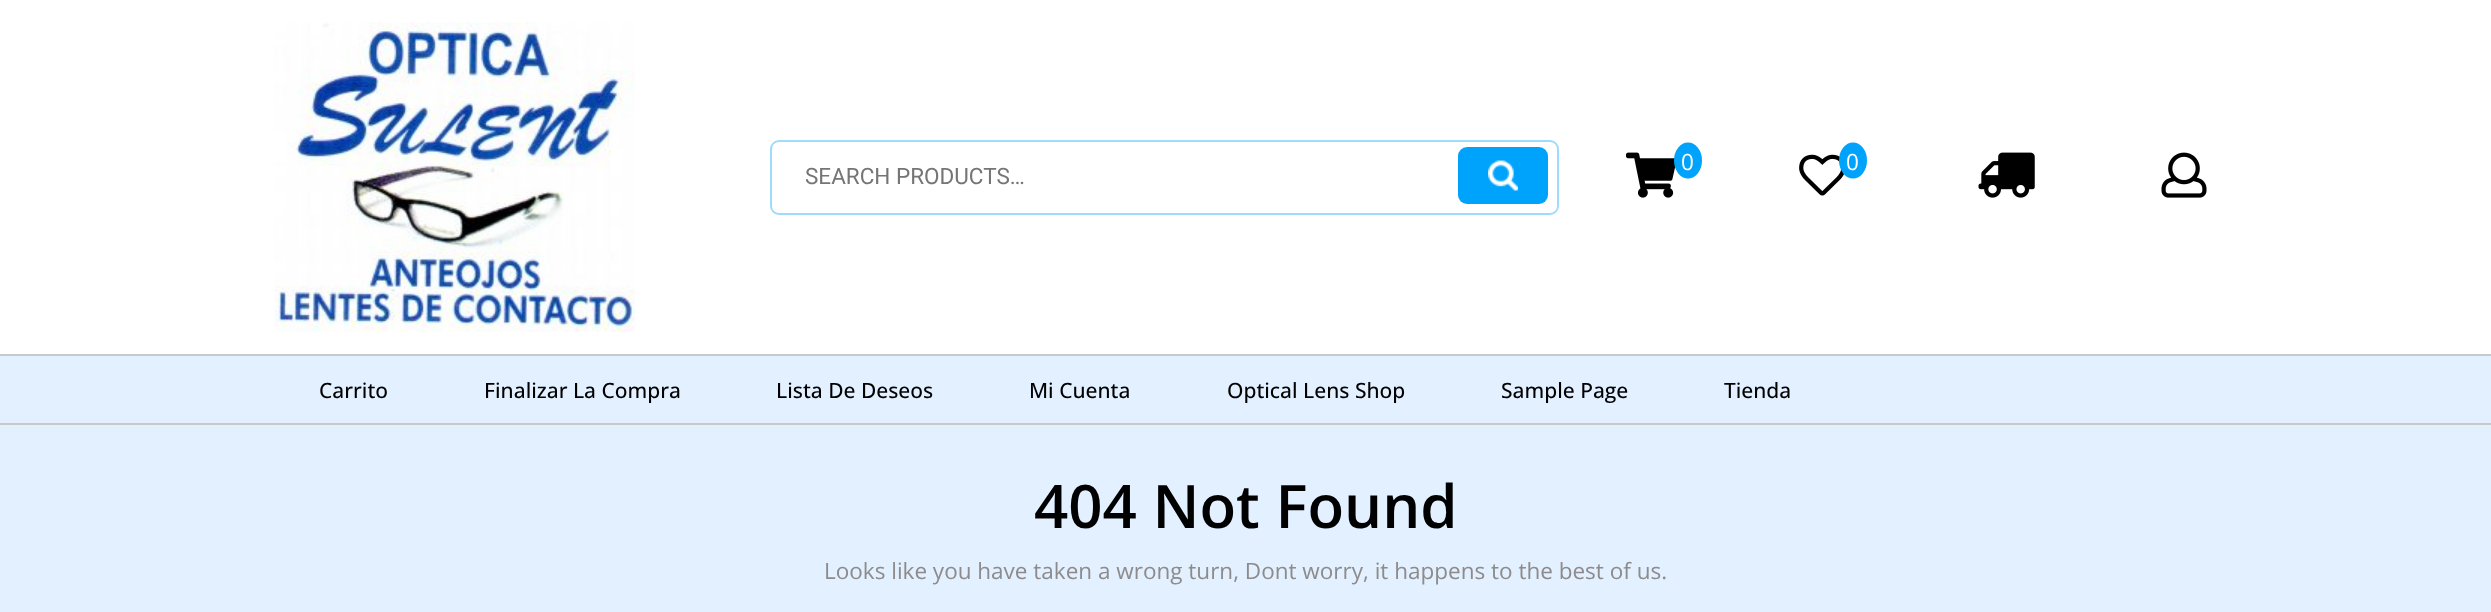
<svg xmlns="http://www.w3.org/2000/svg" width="2491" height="612">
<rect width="100%" height="100%" fill="#e2f0ff"/>
<rect y="423" width="2491" height="2" fill="#c8c8c8"/>
<rect width="2491" height="354" fill="#fff"/>
<rect y="354" width="2491" height="2" fill="#c8c8c8"/>
<image x="274" y="22" width="361" height="310" href="media/1.png"/>
<image x="1626" y="152" width="50" height="46" href="media/2.png"/>
<ellipse cx="1688" cy="160.5" rx="14" ry="18" fill="#00a3fc"/>
<text x="1681" y="170" style="font-family:Open Sans;font-size:22.5px;fill:#fff">0</text>
<image x="1799" y="154" width="45" height="42" href="media/3.png"/>
<ellipse cx="1853" cy="160.5" rx="14" ry="18" fill="#00a3fc"/>
<text x="1846" y="170" style="font-family:Open Sans;font-size:22.5px;fill:#fff">0</text>
<image x="1978" y="152" width="57" height="46" href="media/4.png"/>
<image x="2161" y="152" width="46" height="46" href="media/5.png"/>
<rect x="771" y="141" width="787" height="73" rx="8" fill="none" stroke="#9edcfe" stroke-width="2"/>
<text x="805" y="184" style="font-family:Roboto;font-size:22.5px;fill:#757575">SEARCH PRODUCTS…</text>
<rect x="1458" y="147" width="90" height="57" rx="9" fill="#00a3fc"/>
<image x="1488" y="160" width="30" height="31" href="media/6.png"/>
<text x="319" y="398" style="font-family:Open Sans;font-size:21px;font-weight:500;fill:#000">Carrito</text>
<text x="484" y="398" style="font-family:Open Sans;font-size:21px;font-weight:500;fill:#000">Finalizar La Compra</text>
<text x="776" y="398" style="font-family:Open Sans;font-size:21px;font-weight:500;fill:#000">Lista De Deseos</text>
<text x="1029" y="398" style="font-family:Open Sans;font-size:21px;font-weight:500;fill:#000">Mi Cuenta</text>
<text x="1227" y="398" style="font-family:Open Sans;font-size:21px;font-weight:500;fill:#000">Optical Lens Shop</text>
<text x="1501" y="398" style="font-family:Open Sans;font-size:21px;font-weight:500;fill:#000">Sample Page</text>
<text x="1724" y="398" style="font-family:Open Sans;font-size:21px;font-weight:500;fill:#000">Tienda</text>
<text x="1034" y="528" style="font-family:Open Sans;font-size:60px;font-weight:600;fill:#000">404 Not Found</text>
<text x="824" y="579" style="font-family:Open Sans;font-size:22.5px;fill:#8d8b8b">Looks like you have taken a wrong turn, Dont worry, it happens to the best of us.</text>
</svg>
